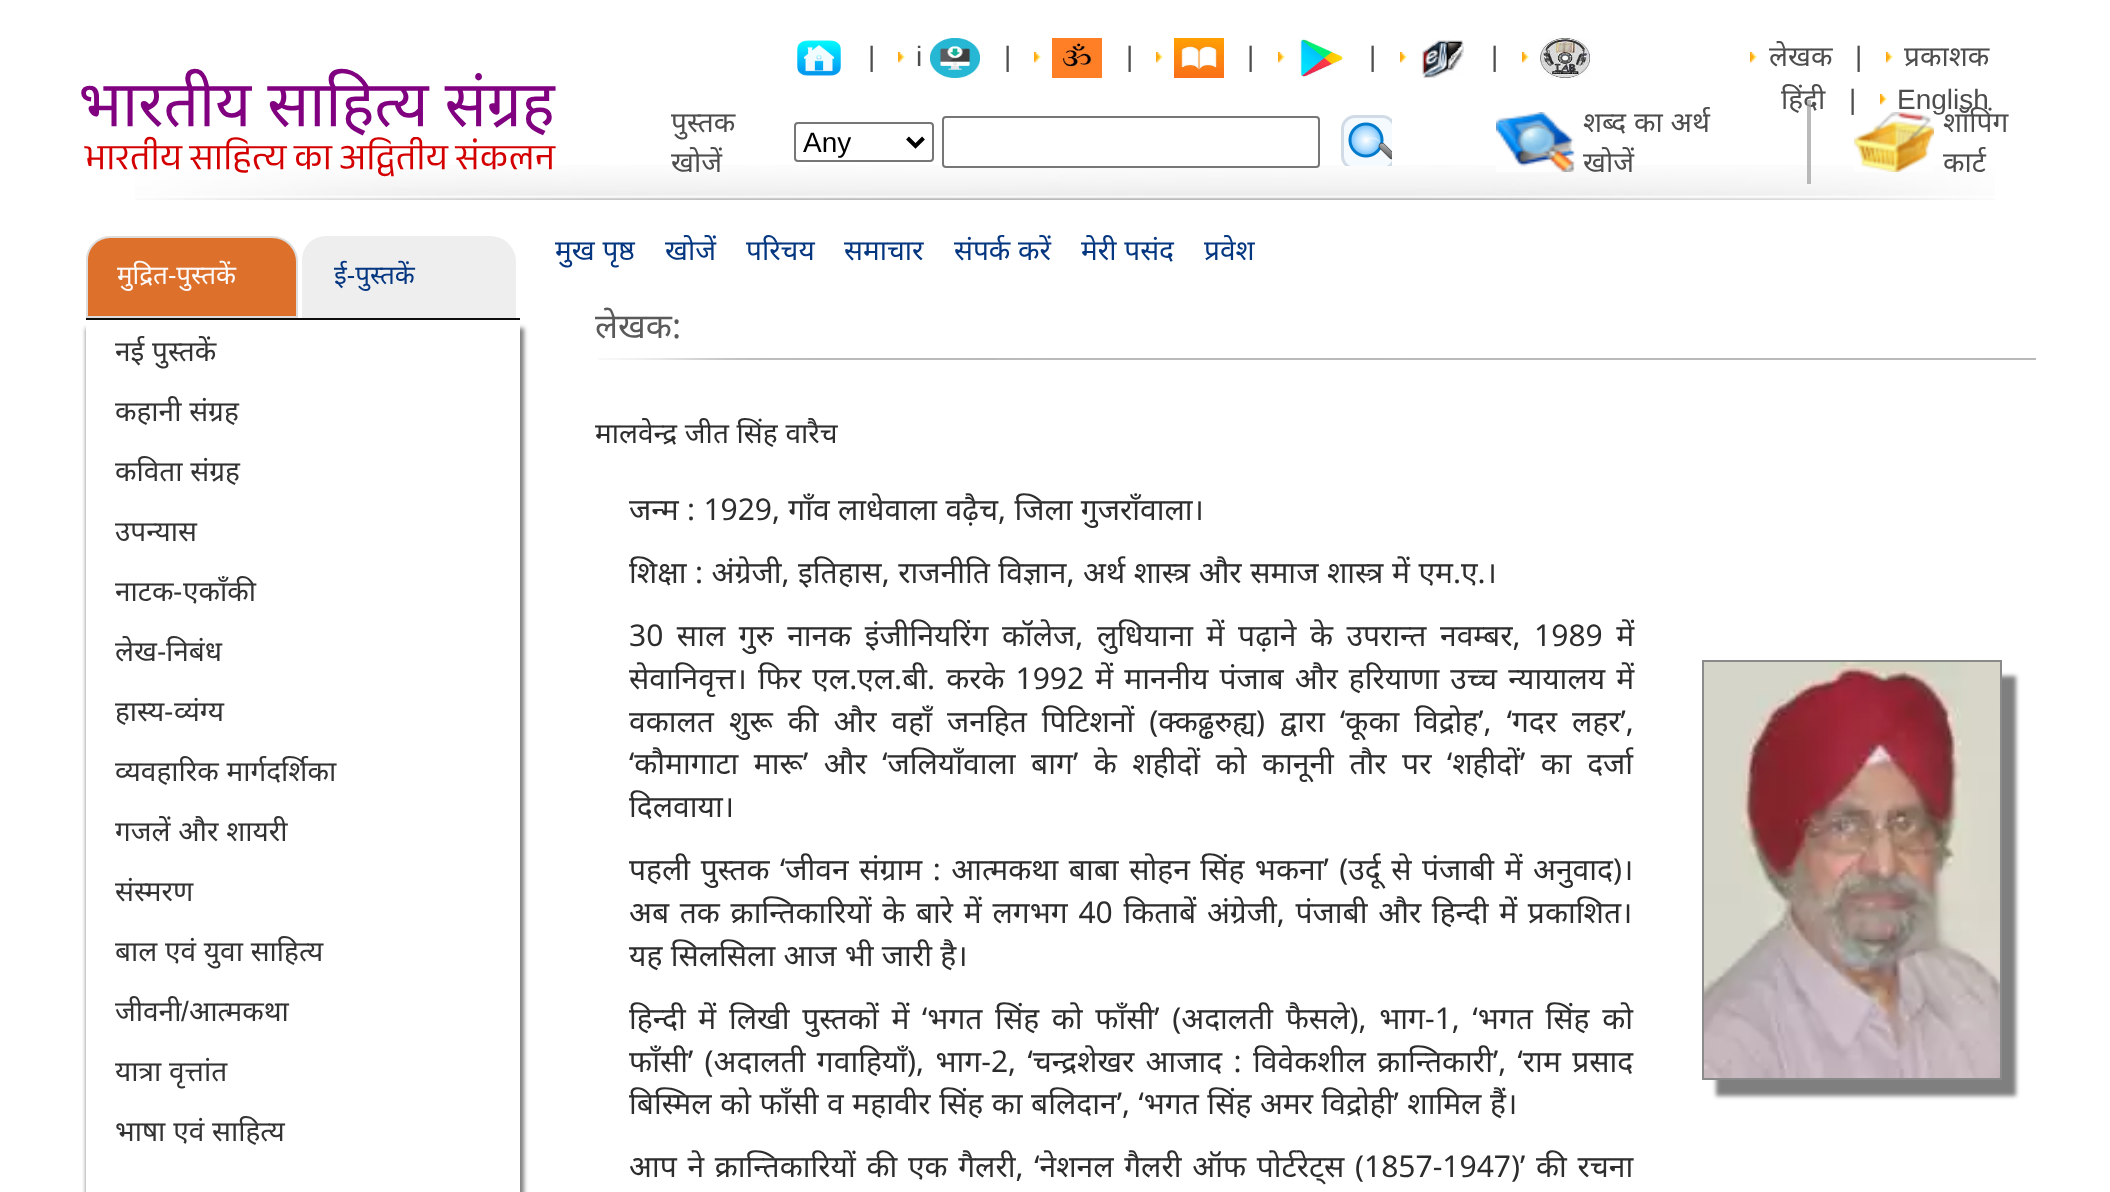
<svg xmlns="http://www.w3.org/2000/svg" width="2110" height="1192">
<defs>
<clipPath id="clip1"><path d="M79 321h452v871h-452zm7 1h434v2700h-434z" clip-rule="evenodd"/></clipPath>
</defs>
<rect width="100%" height="100%" fill="#fff"/>
<image x="135" y="165" width="1860" height="35" href="media/1.png"/>
<image x="81" y="68" width="475" height="109" href="media/2.png"/>
<image x="797" y="40" width="44" height="36" href="media/3.png"/>
<text x="868" y="66" style="font-family:Liberation Sans;font-size:28px;fill:#4d4d4d">|</text>
<image x="898" y="52" width="7" height="11" href="media/4.png"/>
<text x="916" y="66" style="font-family:Liberation Sans;font-size:28px;fill:#4d4d4d">i</text>
<image x="930" y="38" width="50" height="40" href="media/5.png"/>
<text x="1004" y="66" style="font-family:Liberation Sans;font-size:28px;fill:#4d4d4d">|</text>
<image x="1034" y="52" width="7" height="11" href="media/4.png"/>
<image x="1052" y="38" width="50" height="40" href="media/6.png"/>
<text x="1126" y="66" style="font-family:Liberation Sans;font-size:28px;fill:#4d4d4d">|</text>
<image x="1156" y="52" width="7" height="11" href="media/4.png"/>
<image x="1174" y="38" width="50" height="40" href="media/7.png"/>
<text x="1247" y="66" style="font-family:Liberation Sans;font-size:28px;fill:#4d4d4d">|</text>
<image x="1278" y="52" width="7" height="11" href="media/4.png"/>
<image x="1299" y="38" width="44" height="40" href="media/8.png"/>
<text x="1369" y="66" style="font-family:Liberation Sans;font-size:28px;fill:#4d4d4d">|</text>
<image x="1400" y="52" width="7" height="11" href="media/4.png"/>
<image x="1418" y="39" width="46" height="39" href="media/9.png"/>
<text x="1491" y="66" style="font-family:Liberation Sans;font-size:28px;fill:#4d4d4d">|</text>
<image x="1522" y="52" width="7" height="11" href="media/4.png"/>
<image x="1540" y="38" width="50" height="40" href="media/10.png"/>
<image x="1750" y="52" width="7" height="11" href="media/4.png"/>
<text x="1769" y="66" style="font-family:Noto Sans;font-size:28px;fill:#4d4d4d">लेखक</text>
<text x="1855" y="66" style="font-family:Liberation Sans;font-size:28px;fill:#4d4d4d">|</text>
<image x="1886" y="52" width="7" height="11" href="media/4.png"/>
<text x="1904" y="66" style="font-family:Noto Sans;font-size:28px;fill:#4d4d4d">प्रकाशक</text>
<text x="1781" y="109" style="font-family:Noto Sans;font-size:28px;fill:#4d4d4d">हिंदी</text>
<text x="1849" y="109" style="font-family:Liberation Sans;font-size:28px;fill:#4d4d4d">|</text>
<image x="1880" y="94" width="7" height="11" href="media/4.png"/>
<text x="1897" y="109" style="font-family:Liberation Sans;font-size:28px;fill:#4d4d4d">English</text>
<text x="671" y="132" style="font-family:Noto Sans;font-size:28px;fill:#4d4d4d">पुस्तक</text>
<text x="671" y="172" style="font-family:Noto Sans;font-size:28px;fill:#4d4d4d">खोजें</text>
<rect x="795" y="123" width="138" height="38" rx="3" fill="none" stroke="#767676" stroke-width="2"/>
<path d="M907.5 138l8 8l8-8" fill="none" stroke="#000" stroke-width="4"/>
<text x="803" y="152" style="font-family:Liberation Sans;font-size:28px;fill:#000">Any</text>
<rect x="943" y="117" width="376" height="50" rx="3" fill="#fff" stroke="#767676" stroke-width="2"/>
<image x="1341" y="115" width="51" height="51" href="media/11.png"/>
<image x="1496" y="112" width="80" height="60" href="media/12.png"/>
<text x="1583" y="132" word-spacing="0.5" style="font-family:Noto Sans;font-size:28px;fill:#4d4d4d">शब्द का अर्थ</text>
<text x="1583" y="172" style="font-family:Noto Sans;font-size:28px;fill:#4d4d4d">खोजें</text>
<rect x="1807" y="100" width="4" height="84" fill="#a3a3a3bf"/>
<image x="1854" y="112" width="80" height="60" href="media/13.png"/>
<text x="1943" y="132" style="font-family:Noto Sans;font-size:28px;fill:#4d4d4d">शॉपिंग</text>
<text x="1943" y="172" style="font-family:Noto Sans;font-size:28px;fill:#4d4d4d">कार्ट</text>
<text x="555" y="260" word-spacing="0.5" style="font-family:Noto Sans;font-size:28px;fill:#053680">मुख पृष्ठ</text>
<text x="665" y="260" style="font-family:Noto Sans;font-size:28px;fill:#053680">खोजें</text>
<text x="746" y="260" style="font-family:Noto Sans;font-size:28px;fill:#053680">परिचय</text>
<text x="844" y="260" style="font-family:Noto Sans;font-size:28px;fill:#053680">समाचार</text>
<text x="954" y="260" word-spacing="0.5" style="font-family:Noto Sans;font-size:28px;fill:#053680">संपर्क करें</text>
<text x="1081" y="260" word-spacing="0.5" style="font-family:Noto Sans;font-size:28px;fill:#053680">मेरी पसंद</text>
<text x="1204" y="260" style="font-family:Noto Sans;font-size:28px;fill:#053680">प्रवेश</text>
<rect x="86" y="318" width="434" height="2" fill="#0e0d0d"/>
<path d="M110 237h162c14 0 25 11 25 25v55h-210v-57c0-12.5 10.5-23 23-23z" fill="#dd712c" stroke="#ddd" stroke-width="2"/>
<text x="117" y="284" style="font-family:Noto Sans;font-size:26px;fill:#fbf9f9">मुद्रित-पुस्तकें</text>
<path d="M326 236h164c14.5 0 26 11.5 26 26v56h-214v-58c0-13.5 10.5-24 24-24z" fill="#eee"/>
<text x="334" y="284" style="font-family:Noto Sans;font-size:26px;fill:#053680">ई-पुस्तकें</text>
<g clip-path="url(#clip1)">
<rect x="86" y="328" width="438" height="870" fill="#2a292999" filter="blur(2px)"/>
</g>
<text x="115" y="361" word-spacing="0.5" style="font-family:Noto Sans;font-size:28px;fill:#333">नई पुस्तकें</text>
<text x="115" y="421" word-spacing="0.5" style="font-family:Noto Sans;font-size:28px;fill:#333">कहानी संग्रह</text>
<text x="115" y="481" word-spacing="0.5" style="font-family:Noto Sans;font-size:28px;fill:#333">कविता संग्रह</text>
<text x="115" y="541" style="font-family:Noto Sans;font-size:28px;fill:#333">उपन्यास</text>
<text x="115" y="601" style="font-family:Noto Sans;font-size:28px;fill:#333">नाटक</text>
<text x="173" y="601" style="font-family:Liberation Sans;font-size:28px;fill:#333">-</text>
<text x="183" y="601" style="font-family:Noto Sans;font-size:28px;fill:#333">एकाँकी</text>
<text x="115" y="661" style="font-family:Noto Sans;font-size:28px;fill:#333">लेख</text>
<text x="157" y="661" style="font-family:Liberation Sans;font-size:28px;fill:#333">-</text>
<text x="166" y="661" style="font-family:Noto Sans;font-size:28px;fill:#333">निबंध</text>
<text x="115" y="721" style="font-family:Noto Sans;font-size:28px;fill:#333">हास्य</text>
<text x="164" y="721" style="font-family:Liberation Sans;font-size:28px;fill:#333">-</text>
<text x="174" y="721" style="font-family:Noto Sans;font-size:28px;fill:#333">व्यंग्य</text>
<text x="115" y="781" word-spacing="0.5" style="font-family:Noto Sans;font-size:28px;fill:#333">व्यवहारिक मार्गदर्शिका</text>
<text x="115" y="841" word-spacing="0.5" style="font-family:Noto Sans;font-size:28px;fill:#333">गजलें और शायरी</text>
<text x="115" y="901" style="font-family:Noto Sans;font-size:28px;fill:#333">संस्मरण</text>
<text x="115" y="961" word-spacing="0.5" style="font-family:Noto Sans;font-size:28px;fill:#333">बाल एवं युवा साहित्य</text>
<text x="115" y="1021" style="font-family:Noto Sans;font-size:28px;fill:#333">जीवनी</text>
<text x="181" y="1021" style="font-family:Liberation Sans;font-size:28px;fill:#333">/</text>
<text x="189" y="1021" style="font-family:Noto Sans;font-size:28px;fill:#333">आत्मकथा</text>
<text x="115" y="1081" word-spacing="0.5" style="font-family:Noto Sans;font-size:28px;fill:#333">यात्रा वृत्तांत</text>
<text x="115" y="1141" word-spacing="0.5" style="font-family:Noto Sans;font-size:28px;fill:#333">भाषा एवं साहित्य</text>
<image x="598" y="358" width="1438" height="2" href="media/14.png"/>
<text x="595" y="338" style="font-family:Noto Sans;font-size:34px;fill:#5a5a5a">लेखक:</text>
<text x="595" y="443" word-spacing="0.5" style="font-family:Noto Sans;font-size:28px;fill:#2d2d2d">मालवेन्द्र जीत सिंह वारैच</text>
<text x="629" y="520" word-spacing="0.5" style="font-family:Noto Sans;font-size:30px;fill:#2d2d2d">जन्म : 1929, गाँव लाधेवाला वढ़ैच, जिला गुजराँवाला।</text>
<text x="629" y="583" word-spacing="0.75" style="font-family:Noto Sans;font-size:30px;fill:#2d2d2d">शिक्षा : अंग्रेजी, इतिहास, राजनीति विज्ञान, अर्थ शास्त्र और समाज शास्त्र में एम.ए.।</text>
<text x="629" y="646" word-spacing="5.75" style="font-family:Noto Sans;font-size:30px;fill:#2d2d2d">30 साल गुरु नानक इंजीनियरिंग कॉलेज, लुधियाना में पढ़ाने के उपरान्त नवम्बर, 1989 में</text>
<text x="629" y="689" word-spacing="3.25" style="font-family:Noto Sans;font-size:30px;fill:#2d2d2d">सेवानिवृत्त। फिर एल.एल.बी. करके 1992 में माननीय पंजाब और हरियाणा उच्च न्यायालय में</text>
<text x="629" y="732" word-spacing="7.25" style="font-family:Noto Sans;font-size:30px;fill:#2d2d2d">वकालत शुरू की और वहाँ जनहित पिटिशनों (क्कढ्ढरुह्य) द्वारा ‘कूका विद्रोह’, ‘गदर लहर’,</text>
<text x="629" y="774" word-spacing="7.75" style="font-family:Noto Sans;font-size:30px;fill:#2d2d2d">‘कौमागाटा मारू’ और ‘जलियाँवाला बाग’ के शहीदों को कानूनी तौर पर ‘शहीदों’ का दर्जा</text>
<text x="629" y="817" style="font-family:Noto Sans;font-size:30px;fill:#2d2d2d">दिलवाया।</text>
<text x="629" y="880" word-spacing="2.75" style="font-family:Noto Sans;font-size:30px;fill:#2d2d2d">पहली पुस्तक ‘जीवन संग्राम : आत्मकथा बाबा सोहन सिंह भकना’ (उर्दू से पंजाबी में अनुवाद)।</text>
<text x="629" y="923" word-spacing="2.9" style="font-family:Noto Sans;font-size:30px;fill:#2d2d2d">अब तक क्रान्तिकारियों के बारे में लगभग 40 किताबें अंग्रेजी, पंजाबी और हिन्दी में प्रकाशित।</text>
<text x="629" y="966" word-spacing="0.5" style="font-family:Noto Sans;font-size:30px;fill:#2d2d2d">यह सिलसिला आज भी जारी है।</text>
<text x="629" y="1029" word-spacing="4.9" style="font-family:Noto Sans;font-size:30px;fill:#2d2d2d">हिन्दी में लिखी पुस्तकों में ‘भगत सिंह को फाँसी’ (अदालती फैसले), भाग-1, ‘भगत सिंह को</text>
<text x="629" y="1072" word-spacing="3.6" style="font-family:Noto Sans;font-size:30px;fill:#2d2d2d">फाँसी’ (अदालती गवाहियाँ), भाग-2, ‘चन्द्रशेखर आजाद : विवेकशील क्रान्तिकारी’, ‘राम प्रसाद</text>
<text x="629" y="1114" word-spacing="0.75" style="font-family:Noto Sans;font-size:30px;fill:#2d2d2d">बिस्मिल को फाँसी व महावीर सिंह का बलिदान’, ‘भगत सिंह अमर विद्रोही’ शामिल हैं।</text>
<text x="629" y="1177" word-spacing="2.9" style="font-family:Noto Sans;font-size:30px;fill:#2d2d2d">आप ने क्रान्तिकारियों की एक गैलरी, ‘नेशनल गैलरी ऑफ पोर्टरेट्स (1857-1947)’ की रचना</text>
<rect x="1716" y="676" width="300" height="420" fill="#2a292999" filter="blur(2px)"/>
<rect x="1703" y="661" width="298" height="418" fill="none" stroke="#8a8a8a" stroke-width="2"/>
<image x="1704" y="662" width="296" height="416" href="media/15.png"/>
</svg>
